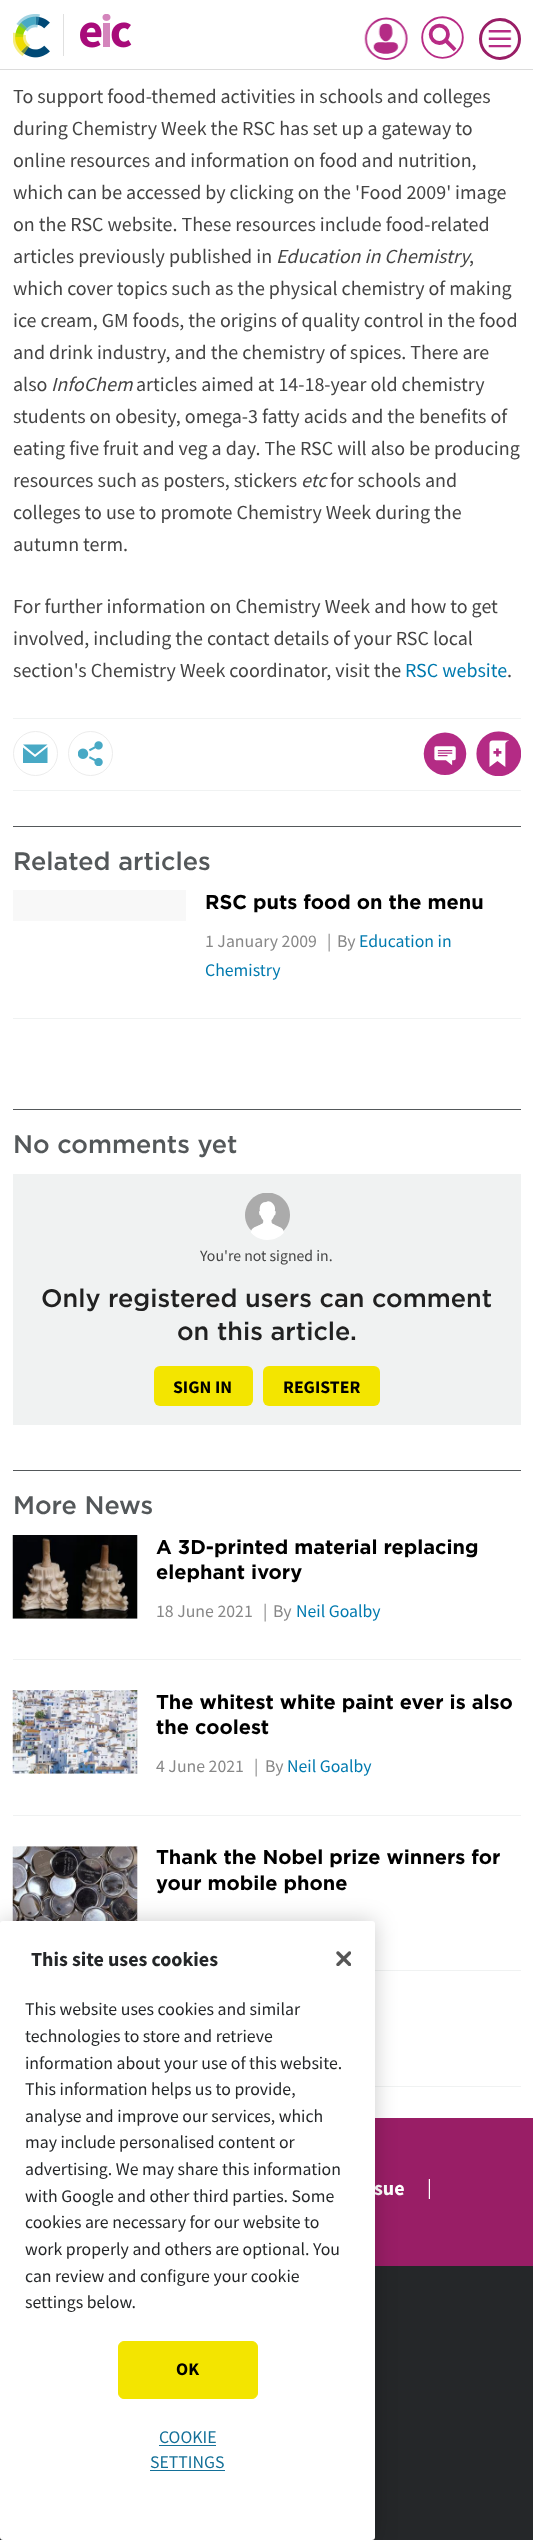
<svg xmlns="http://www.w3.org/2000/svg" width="533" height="2540">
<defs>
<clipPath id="clip1"><rect x="63" y="14" width="1" height="42"/></clipPath>
<clipPath id="clip2"><rect x="23" y="741" width="25" height="25"/></clipPath>
</defs>
<rect width="100%" height="100%" fill="#fff"/>
<rect y="69" width="533" height="1" fill="#dcdcdc"/>
<image x="13" y="14" width="37" height="44" href="media/1.png"/>
<g clip-path="url(#clip1)">
<path d="M63 14v42" fill="none" stroke="#ccc" stroke-width="1.2"/>
</g>
<image x="80" y="14" width="52" height="34" href="media/2.png"/>
<image x="364" y="17" width="44" height="43" href="media/3.png"/>
<circle cx="500" cy="39" r="19.5" fill="none" stroke="#991e66" stroke-width="3"/>
<image x="488" y="30" width="24" height="18" href="media/4.png"/>
<image x="421" y="16" width="43" height="43" href="media/5.png"/>
<text x="13" y="103" style="font-family:Source Sans Pro;font-size:20px;fill:#444">To support food-themed activities in schools and colleges</text>
<text x="13" y="135" style="font-family:Source Sans Pro;font-size:20px;fill:#444">during Chemistry Week the RSC has set up a gateway to</text>
<text x="13" y="167" style="font-family:Source Sans Pro;font-size:20px;fill:#444">online resources and information on food and nutrition,</text>
<text x="13" y="199" style="font-family:Source Sans Pro;font-size:20px;fill:#444">which can be accessed by clicking on the 'Food 2009' image</text>
<text x="13" y="231" style="font-family:Source Sans Pro;font-size:20px;fill:#444">on the RSC website. These resources include food-related</text>
<text x="13" y="263" style="font-family:Source Sans Pro;font-size:20px;fill:#444">articles previously published in</text>
<text x="276" y="263" style="font-family:Source Sans Pro;font-size:20px;font-style:italic;fill:#444">Education in Chemistry</text>
<text x="469" y="263" style="font-family:Source Sans Pro;font-size:20px;fill:#444">,</text>
<text x="13" y="295" style="font-family:Source Sans Pro;font-size:20px;fill:#444">which cover topics such as the physical chemistry of making</text>
<text x="13" y="327" style="font-family:Source Sans Pro;font-size:20px;fill:#444">ice cream, GM foods, the origins of quality control in the food</text>
<text x="13" y="359" style="font-family:Source Sans Pro;font-size:20px;fill:#444">and drink industry, and the chemistry of spices. There are</text>
<text x="13" y="391" style="font-family:Source Sans Pro;font-size:20px;fill:#444">also</text>
<text x="51" y="391" style="font-family:Source Sans Pro;font-size:20px;font-style:italic;fill:#444">InfoChem</text>
<text x="136" y="391" style="font-family:Source Sans Pro;font-size:20px;fill:#444">articles aimed at 14-18-year old chemistry</text>
<text x="13" y="423" style="font-family:Source Sans Pro;font-size:20px;fill:#444">students on obesity, omega-3 fatty acids and the benefits of</text>
<text x="13" y="455" style="font-family:Source Sans Pro;font-size:20px;fill:#444">eating five fruit and veg a day. The RSC will also be producing</text>
<text x="13" y="487" style="font-family:Source Sans Pro;font-size:20px;fill:#444">resources such as posters, stickers</text>
<text x="301" y="487" style="font-family:Source Sans Pro;font-size:20px;font-style:italic;fill:#444">etc</text>
<text x="330" y="487" style="font-family:Source Sans Pro;font-size:20px;fill:#444">for schools and</text>
<text x="13" y="519" style="font-family:Source Sans Pro;font-size:20px;fill:#444">colleges to use to promote Chemistry Week during the</text>
<text x="13" y="551" style="font-family:Source Sans Pro;font-size:20px;fill:#444">autumn term.</text>
<text x="13" y="613" style="font-family:Source Sans Pro;font-size:20px;fill:#444">For further information on Chemistry Week and how to get</text>
<text x="13" y="645" style="font-family:Source Sans Pro;font-size:20px;fill:#444">involved, including the contact details of your RSC local</text>
<text x="13" y="677" style="font-family:Source Sans Pro;font-size:20px;fill:#444">section's Chemistry Week coordinator, visit the</text>
<text x="405" y="677" style="font-family:Source Sans Pro;font-size:20px;fill:#007aaf">RSC website</text>
<text x="507" y="677" style="font-family:Source Sans Pro;font-size:20px;fill:#444">.</text>
<rect x="13" y="718" width="508" height="1" fill="#f0f2f2"/>
<rect x="13" y="790" width="508" height="1" fill="#f0f2f2"/>
<circle cx="35.5" cy="753.5" r="22" fill="none" stroke="#ececec"/>
<g clip-path="url(#clip2)">
<path d="M35 754.5l-12-10h24.5zm0 2.5l-12.5-10v16h25v-16z" fill="#48a9c5"/>
</g>
<circle cx="90.5" cy="753.5" r="22" fill="none" stroke="#ececec"/>
<image x="78" y="741" width="25" height="25" href="media/6.png"/>
<image x="423" y="732" width="44" height="43" href="media/7.png"/>
<image x="476" y="731" width="45" height="45" href="media/8.png"/>
<rect x="13" y="826" width="508" height="1" fill="#54585a"/>
<text x="13" y="870" style="font-family:'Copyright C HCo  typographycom';font-size:25.3px;font-weight:300;fill:#54585a">Related articles</text>
<rect x="13" y="1018" width="508" height="1" fill="#f0f2f2"/>
<rect x="13" y="890" width="173" height="31" fill="#f8f8f8"/>
<text x="205" y="909" style="font-family:'Copyright C HCo  typographycom';font-size:20px;fill:#000">RSC puts food on the menu</text>
<text x="205" y="947" style="font-family:Source Sans Pro;font-size:17.75px;fill:#888">1 January 2009</text>
<text x="327" y="947" style="font-family:Source Sans Pro;font-size:17.75px;fill:#888">|</text>
<text x="337" y="947" style="font-family:Source Sans Pro;font-size:17.75px;fill:#888">By</text>
<text x="359" y="947" style="font-family:Source Sans Pro;font-size:17.75px;fill:#007aaf">Education in</text>
<text x="205" y="976" style="font-family:Source Sans Pro;font-size:17.75px;fill:#007aaf">Chemistry</text>
<rect x="13" y="1109" width="508" height="1" fill="#54585a"/>
<text x="13" y="1153" style="font-family:'Copyright C HCo  typographycom';font-size:25.3px;font-weight:300;fill:#54585a">No comments yet</text>
<rect x="13" y="1174" width="508" height="251" fill="#f0f2f2"/>
<image x="245" y="1193" width="45" height="47" href="media/9.png"/>
<text x="200" y="1261" style="font-family:Source Sans Pro;font-size:15.75px;fill:#444">You're not signed in.</text>
<text x="41" y="1307" style="font-family:'Copyright C HCo  typographycom';font-size:25.3px;font-weight:300;fill:#212121">Only registered users can comment</text>
<text x="177" y="1340" style="font-family:'Copyright C HCo  typographycom';font-size:25.3px;font-weight:300;fill:#212121">on this article.</text>
<rect x="154" y="1366" width="99" height="40" rx="6" fill="#f3e500"/>
<text x="173" y="1393" style="font-family:Source Sans Pro;font-size:17.75px;font-weight:bold;fill:#000">SIGN IN</text>
<rect x="263" y="1366" width="117" height="40" rx="6" fill="#f3e500"/>
<text x="283" y="1393" style="font-family:Source Sans Pro;font-size:17.75px;font-weight:bold;fill:#000">REGISTER</text>
<rect x="13" y="1470" width="508" height="1" fill="#54585a"/>
<text x="13" y="1514" style="font-family:'Copyright C HCo  typographycom';font-size:25.3px;font-weight:300;fill:#54585a">More News</text>
<rect x="13" y="1659" width="508" height="1" fill="#f0f2f2"/>
<rect x="13" y="1535" width="125" height="84" fill="#f8f8f8"/>
<image x="12" y="1535" width="126" height="84" href="media/10.png"/>
<text x="156" y="1554" style="font-family:'Copyright C HCo  typographycom';font-size:20px;fill:#000">A 3D-printed material replacing</text>
<text x="156" y="1579" style="font-family:'Copyright C HCo  typographycom';font-size:20px;fill:#000">elephant ivory</text>
<text x="156" y="1617" style="font-family:Source Sans Pro;font-size:17.75px;fill:#888">18 June 2021</text>
<text x="263" y="1617" style="font-family:Source Sans Pro;font-size:17.75px;fill:#888">|</text>
<text x="273" y="1617" style="font-family:Source Sans Pro;font-size:17.75px;fill:#888">By</text>
<text x="296" y="1617" style="font-family:Source Sans Pro;font-size:17.75px;fill:#007aaf">Neil Goalby</text>
<rect x="13" y="1815" width="508" height="1" fill="#f0f2f2"/>
<rect x="13" y="1690" width="125" height="84" fill="#f8f8f8"/>
<image x="12" y="1690" width="126" height="84" href="media/11.png"/>
<text x="156" y="1709" style="font-family:'Copyright C HCo  typographycom';font-size:20px;fill:#000">The whitest white paint ever is also</text>
<text x="156" y="1734" style="font-family:'Copyright C HCo  typographycom';font-size:20px;fill:#000">the coolest</text>
<text x="156" y="1772" style="font-family:Source Sans Pro;font-size:17.75px;fill:#888">4 June 2021</text>
<text x="254" y="1772" style="font-family:Source Sans Pro;font-size:17.75px;fill:#888">|</text>
<text x="265" y="1772" style="font-family:Source Sans Pro;font-size:17.75px;fill:#888">By</text>
<text x="287" y="1772" style="font-family:Source Sans Pro;font-size:17.75px;fill:#007aaf">Neil Goalby</text>
<rect x="375" y="1970" width="146" height="1" fill="#f0f2f2"/>
<rect x="13" y="1846" width="125" height="75" fill="#f8f8f8"/>
<image x="12" y="1846" width="126" height="75" href="media/12.png"/>
<text x="156" y="1864" style="font-family:'Copyright C HCo  typographycom';font-size:20px;fill:#000">Thank the Nobel prize winners for</text>
<text x="156" y="1890" style="font-family:'Copyright C HCo  typographycom';font-size:20px;fill:#000">your mobile phone</text>
<rect x="375" y="2086" width="146" height="1" fill="#f0f2f2"/>
<rect x="375" y="2118" width="158" height="148" fill="#991e66"/>
<text x="374" y="2195" style="font-family:Source Sans Pro;font-size:20px;font-weight:bold;fill:#fff">sue</text>
<text x="427" y="2194" style="font-family:Source Sans Pro;font-size:20px;fill:#fff">|</text>
<rect y="2266" width="533" height="274" fill="#252729"/>
<rect y="1921" width="375" height="619" rx="3" fill="#00000033" filter="blur(11px)"/>
<rect y="1921" width="375" height="619" rx="3" fill="#fff"/>
<text x="31" y="1966" style="font-family:Source Sans Pro;font-size:20px;font-weight:bold;fill:#252729">This site uses cookies</text>
<text x="25" y="2015" style="font-family:Source Sans Pro;font-size:17.75px;fill:#252729">This website uses cookies and similar</text>
<text x="25" y="2042" style="font-family:Source Sans Pro;font-size:17.75px;fill:#252729">technologies to store and retrieve</text>
<text x="25" y="2069" style="font-family:Source Sans Pro;font-size:17.75px;fill:#252729">information about your use of this website.</text>
<text x="25" y="2095" style="font-family:Source Sans Pro;font-size:17.75px;fill:#252729">This information helps us to provide,</text>
<text x="25" y="2122" style="font-family:Source Sans Pro;font-size:17.75px;fill:#252729">analyse and improve our services, which</text>
<text x="25" y="2148" style="font-family:Source Sans Pro;font-size:17.75px;fill:#252729">may include personalised content or</text>
<text x="25" y="2175" style="font-family:Source Sans Pro;font-size:17.75px;fill:#252729">advertising. We may share this information</text>
<text x="25" y="2202" style="font-family:Source Sans Pro;font-size:17.75px;fill:#252729">with Google and other third parties. Some</text>
<text x="25" y="2228" style="font-family:Source Sans Pro;font-size:17.75px;fill:#252729">cookies are necessary for our website to</text>
<text x="25" y="2255" style="font-family:Source Sans Pro;font-size:17.75px;fill:#252729">work properly and others are optional. You</text>
<text x="25" y="2282" style="font-family:Source Sans Pro;font-size:17.75px;fill:#252729">can review and configure your cookie</text>
<text x="25" y="2308" style="font-family:Source Sans Pro;font-size:17.75px;fill:#252729">settings below.</text>
<image x="336" y="1951" width="15" height="15" href="media/13.png"/>
<rect x="118.5" y="2341.5" width="139" height="57" rx="5.5" fill="#f3e500" stroke="#f3e500"/>
<text x="176" y="2375" style="font-family:Source Sans Pro;font-size:17.75px;font-weight:bold;fill:#000">OK</text>
<text x="159" y="2443" style="font-family:Source Sans Pro;font-size:17.75px;fill:#147098">COOKIE</text>
<rect x="159" y="2445" width="57" height="1" fill="#147098"/>
<text x="150" y="2468" style="font-family:Source Sans Pro;font-size:17.75px;fill:#147098">SETTINGS</text>
<rect x="150" y="2470" width="75" height="1" fill="#147098"/>
</svg>
